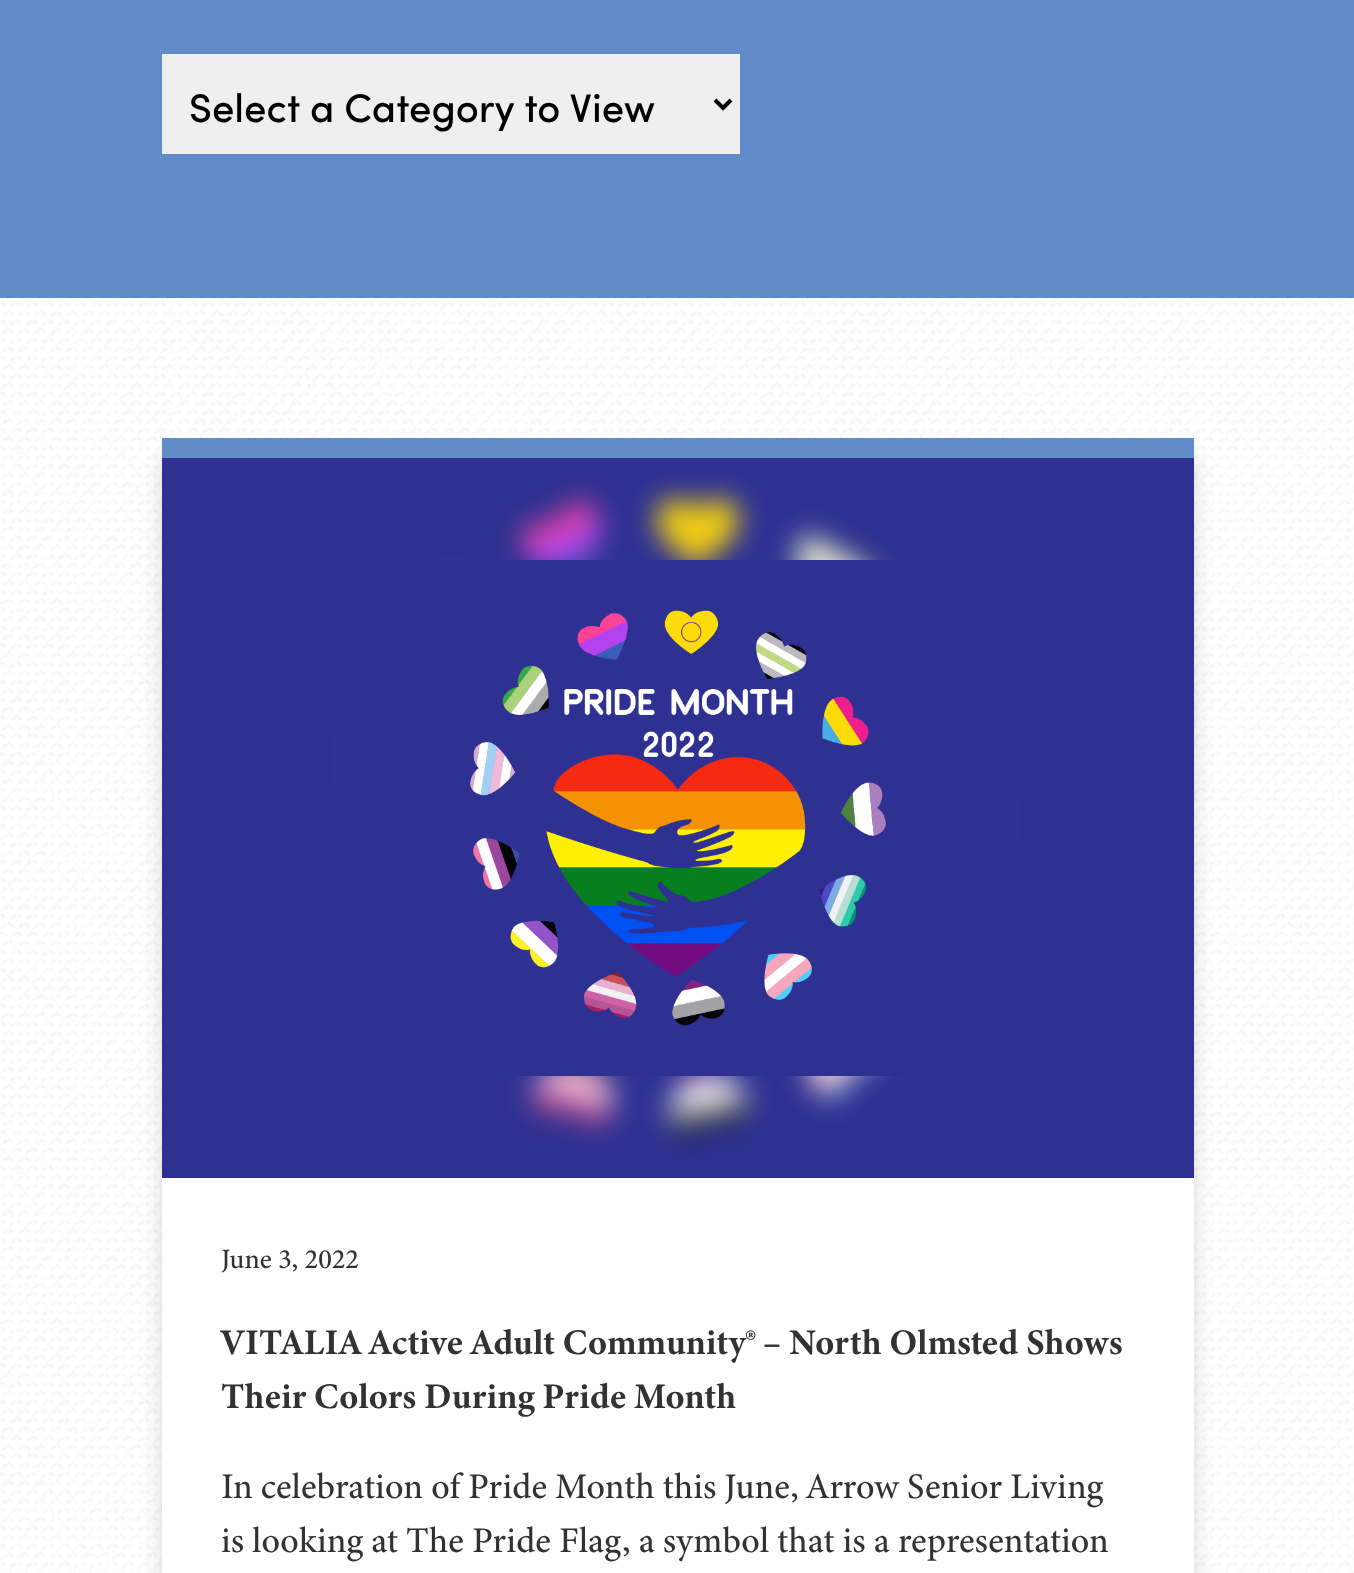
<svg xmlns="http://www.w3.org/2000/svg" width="1354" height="1573">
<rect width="100%" height="100%" fill="#fff"/>
<image x="0" y="298" width="1354" height="1275" href="media/1.png"/>
<rect width="1354" height="298" fill="#618cc9"/>
<rect x="162" y="54" width="578" height="100" fill="#efefef"/>
<path d="M715 100l8 8l8-8" fill="none" stroke="#000" stroke-width="4"/>
<text x="189" y="122" style="font-family:Sofia;font-size:40px;font-weight:500;fill:#000">Select a Category to View</text>
<rect x="162" y="458" width="1032" height="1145" fill="#4e4e4e38" filter="blur(10px)"/>
<rect x="162" y="1178" width="1032" height="395" fill="#fff"/>
<rect x="162" y="438" width="1032" height="20" fill="#618cc9"/>
<image x="162" y="458" width="1032" height="720" href="media/2.png"/>
<image x="336" y="560" width="680" height="516" href="media/3.png"/>
<text x="221" y="1268" style="font-family:'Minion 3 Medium';font-size:28px;font-weight:500;fill:#333131">June 3, 2022</text>
<text x="221" y="1354" style="font-family:'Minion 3';font-size:36px;font-weight:bold;fill:#333131">VITALIA Active Adult Community® – North Olmsted Shows</text>
<text x="221" y="1408" style="font-family:'Minion 3';font-size:36px;font-weight:bold;fill:#333131">Their Colors During Pride Month</text>
<text x="221" y="1498" style="font-family:'Minion 3 Medium';font-size:36px;font-weight:500;fill:#333131">In celebration of Pride Month this June, Arrow Senior Living</text>
<text x="221" y="1552" style="font-family:'Minion 3 Medium';font-size:36px;font-weight:500;fill:#333131">is looking at The Pride Flag, a symbol that is a representation</text>
</svg>
